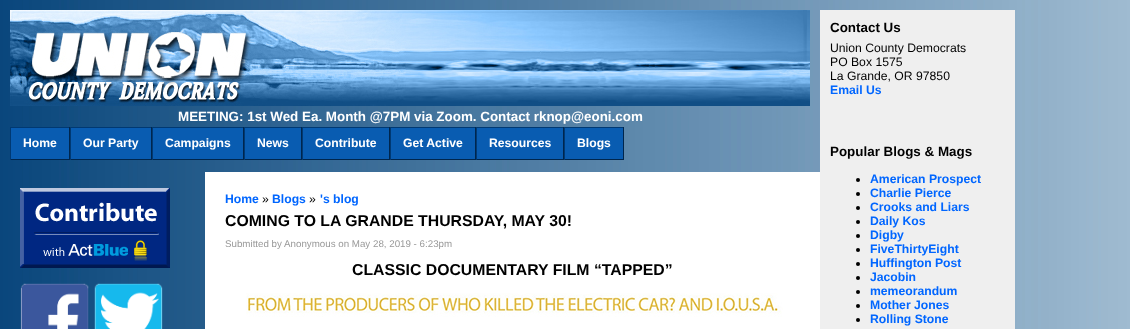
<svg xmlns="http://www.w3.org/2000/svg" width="1130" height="329">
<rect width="100%" height="100%" fill="#fff"/>
<image x="0" y="0" width="1130" height="329" href="media/1.png"/>
<text x="178" y="121" style="font-family:Liberation Sans;font-size:13.4px;font-weight:bold;fill:#fff">MEETING: 1st Wed Ea. Month @7PM via Zoom. Contact rknop@eoni.com</text>
<rect x="11" y="128" width="58" height="31" fill="#095cb1"/>
<rect x="10" y="127" width="614" height="1" fill="#003973"/>
<rect x="69" y="127" width="1" height="33" fill="#00264d"/>
<rect x="10" y="159" width="60" height="1" fill="#00264d"/>
<rect x="10" y="127" width="1" height="33" fill="#003973"/>
<text x="23" y="147" style="font-family:Liberation Sans;font-size:12.2px;font-weight:bold;fill:#fff">Home</text>
<rect x="71" y="128" width="80" height="31" fill="#095cb1"/>
<rect x="151" y="127" width="1" height="33" fill="#00264d"/>
<rect x="70" y="159" width="82" height="1" fill="#00264d"/>
<rect x="70" y="127" width="1" height="33" fill="#003973"/>
<text x="83" y="147" style="font-family:Liberation Sans;font-size:12.2px;font-weight:bold;fill:#fff">Our Party</text>
<rect x="153" y="128" width="90" height="31" fill="#095cb1"/>
<rect x="243" y="127" width="1" height="33" fill="#00264d"/>
<rect x="152" y="159" width="92" height="1" fill="#00264d"/>
<rect x="152" y="127" width="1" height="33" fill="#003973"/>
<text x="165" y="147" style="font-family:Liberation Sans;font-size:12.2px;font-weight:bold;fill:#fff">Campaigns</text>
<rect x="245" y="128" width="56" height="31" fill="#095cb1"/>
<rect x="301" y="127" width="1" height="33" fill="#00264d"/>
<rect x="244" y="159" width="58" height="1" fill="#00264d"/>
<rect x="244" y="127" width="1" height="33" fill="#003973"/>
<text x="257" y="147" style="font-family:Liberation Sans;font-size:12.2px;font-weight:bold;fill:#fff">News</text>
<rect x="303" y="128" width="86" height="31" fill="#095cb1"/>
<rect x="389" y="127" width="1" height="33" fill="#00264d"/>
<rect x="302" y="159" width="88" height="1" fill="#00264d"/>
<rect x="302" y="127" width="1" height="33" fill="#003973"/>
<text x="315" y="147" style="font-family:Liberation Sans;font-size:12.2px;font-weight:bold;fill:#fff">Contribute</text>
<rect x="391" y="128" width="84" height="31" fill="#095cb1"/>
<rect x="475" y="127" width="1" height="33" fill="#00264d"/>
<rect x="390" y="159" width="86" height="1" fill="#00264d"/>
<rect x="390" y="127" width="1" height="33" fill="#003973"/>
<text x="403" y="147" style="font-family:Liberation Sans;font-size:12.2px;font-weight:bold;fill:#fff">Get Active</text>
<rect x="477" y="128" width="86" height="31" fill="#095cb1"/>
<rect x="563" y="127" width="1" height="33" fill="#00264d"/>
<rect x="476" y="159" width="88" height="1" fill="#00264d"/>
<rect x="476" y="127" width="1" height="33" fill="#003973"/>
<text x="489" y="147" style="font-family:Liberation Sans;font-size:12.2px;font-weight:bold;fill:#fff">Resources</text>
<rect x="565" y="128" width="58" height="31" fill="#095cb1"/>
<rect x="623" y="127" width="1" height="33" fill="#00264d"/>
<rect x="564" y="159" width="60" height="1" fill="#00264d"/>
<rect x="564" y="127" width="1" height="33" fill="#003973"/>
<text x="577" y="147" style="font-family:Liberation Sans;font-size:12.2px;font-weight:bold;fill:#fff">Blogs</text>
<image x="10" y="10" width="800" height="96" href="media/2.png"/>
<rect x="820" y="10" width="195" height="319" fill="#efefef"/>
<text x="830" y="32" style="font-family:Liberation Sans;font-size:13.4px;font-weight:bold;fill:#000">Contact Us</text>
<text x="830" y="52" style="font-family:Liberation Sans;font-size:12.2px;fill:#000">Union County Democrats</text>
<text x="830" y="66" style="font-family:Liberation Sans;font-size:12.2px;fill:#000">PO Box 1575</text>
<text x="830" y="80" style="font-family:Liberation Sans;font-size:12.2px;fill:#000">La Grande, OR 97850</text>
<text x="830" y="94" style="font-family:Liberation Sans;font-size:12.2px;font-weight:bold;fill:#06f">Email Us</text>
<text x="830" y="156" style="font-family:Liberation Sans;font-size:13.4px;font-weight:bold;fill:#000">Popular Blogs &amp; Mags</text>
<circle cx="858" cy="180" r="2" fill="#000"/>
<text x="870" y="183" style="font-family:Liberation Sans;font-size:12.2px;font-weight:bold;fill:#06f">American Prospect</text>
<circle cx="858" cy="194" r="2" fill="#000"/>
<text x="870" y="197" style="font-family:Liberation Sans;font-size:12.2px;font-weight:bold;fill:#06f">Charlie Pierce</text>
<circle cx="858" cy="208" r="2" fill="#000"/>
<text x="870" y="211" style="font-family:Liberation Sans;font-size:12.2px;font-weight:bold;fill:#06f">Crooks and Liars</text>
<circle cx="858" cy="222" r="2" fill="#000"/>
<text x="870" y="225" style="font-family:Liberation Sans;font-size:12.2px;font-weight:bold;fill:#06f">Daily Kos</text>
<circle cx="858" cy="236" r="2" fill="#000"/>
<text x="870" y="239" style="font-family:Liberation Sans;font-size:12.2px;font-weight:bold;fill:#06f">Digby</text>
<circle cx="858" cy="250" r="2" fill="#000"/>
<text x="870" y="253" style="font-family:Liberation Sans;font-size:12.2px;font-weight:bold;fill:#06f">FiveThirtyEight</text>
<circle cx="858" cy="264" r="2" fill="#000"/>
<text x="870" y="267" style="font-family:Liberation Sans;font-size:12.2px;font-weight:bold;fill:#06f">Huffington Post</text>
<circle cx="858" cy="278" r="2" fill="#000"/>
<text x="870" y="281" style="font-family:Liberation Sans;font-size:12.2px;font-weight:bold;fill:#06f">Jacobin</text>
<circle cx="858" cy="292" r="2" fill="#000"/>
<text x="870" y="295" style="font-family:Liberation Sans;font-size:12.2px;font-weight:bold;fill:#06f">memeorandum</text>
<circle cx="858" cy="306" r="2" fill="#000"/>
<text x="870" y="309" style="font-family:Liberation Sans;font-size:12.2px;font-weight:bold;fill:#06f">Mother Jones</text>
<circle cx="858" cy="320" r="2" fill="#000"/>
<text x="870" y="323" style="font-family:Liberation Sans;font-size:12.2px;font-weight:bold;fill:#06f">Rolling Stone</text>
<image x="20" y="188" width="150" height="80" href="media/3.png"/>
<image x="20" y="283" width="69" height="46" href="media/4.png"/>
<image x="94" y="283" width="69" height="46" href="media/5.png"/>
<rect x="205" y="172" width="615" height="157" fill="#fff"/>
<text x="225" y="203" style="font-family:Liberation Sans;font-size:12.2px;font-weight:bold;fill:#06f">Home</text>
<text x="262" y="203" style="font-family:Liberation Sans;font-size:12.2px;fill:#000">»</text>
<text x="272" y="203" style="font-family:Liberation Sans;font-size:12.2px;font-weight:bold;fill:#06f">Blogs</text>
<text x="309" y="203" style="font-family:Liberation Sans;font-size:12.2px;fill:#000">»</text>
<text x="320" y="203" style="font-family:Liberation Sans;font-size:12.2px;font-weight:bold;fill:#06f">'s blog</text>
<text x="225" y="226" style="font-family:Liberation Sans;font-size:15.8px;font-weight:bold;fill:#000">COMING TO LA GRANDE THURSDAY, MAY 30!</text>
<text x="225" y="247" style="font-family:Liberation Sans;font-size:9.75px;fill:#999">Submitted by Anonymous on May 28, 2019 - 6:23pm</text>
<text x="352" y="275" style="font-family:Liberation Sans;font-size:15.8px;font-weight:bold;fill:#000">CLASSIC DOCUMENTARY FILM “TAPPED”</text>
<image x="246" y="293" width="537" height="24" href="media/6.png"/>
</svg>
